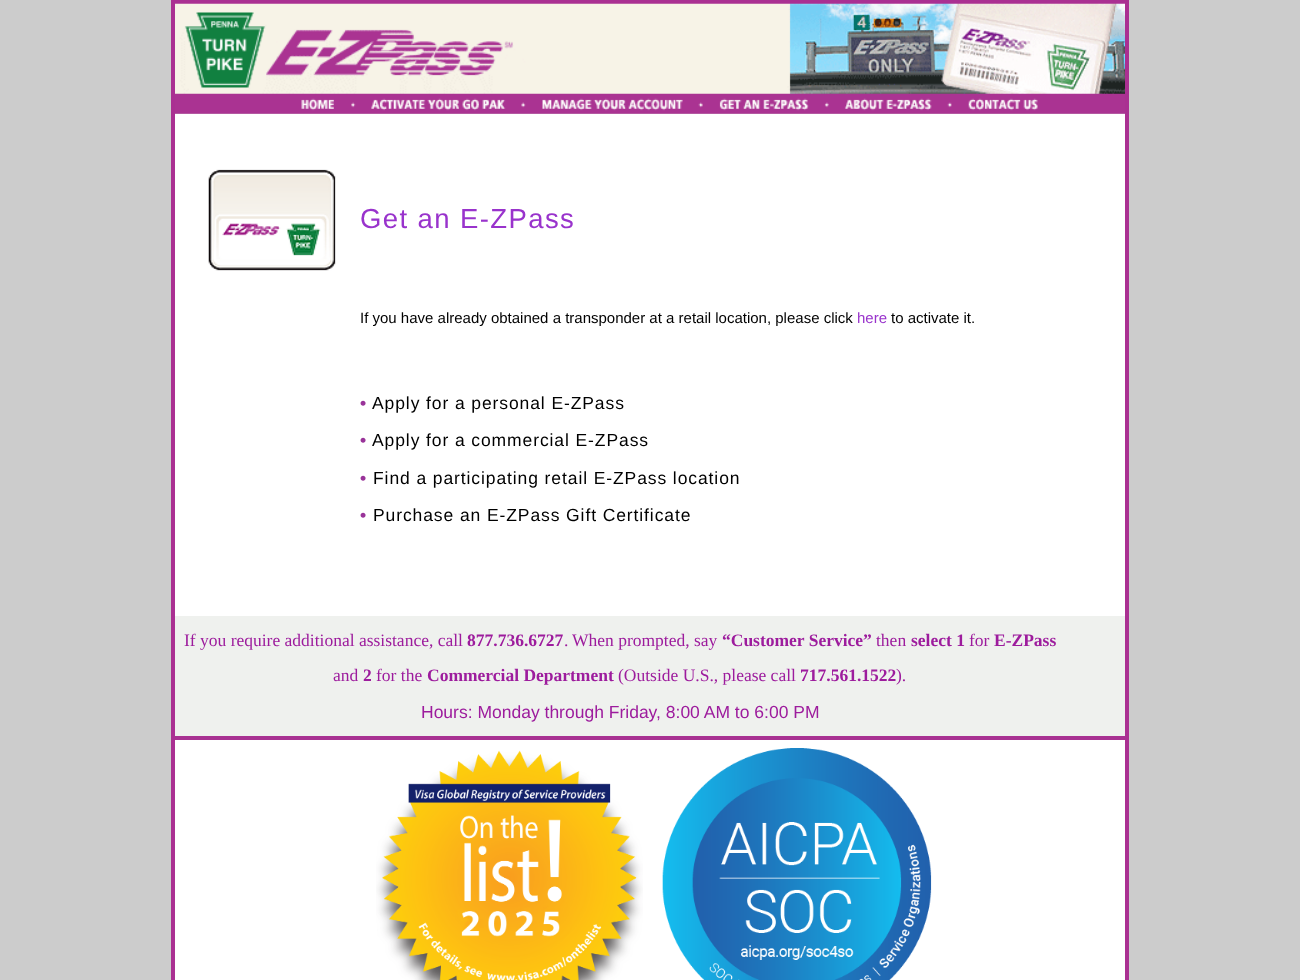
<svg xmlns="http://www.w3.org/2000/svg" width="1300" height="980">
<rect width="100%" height="100%" fill="#ccc"/>
<rect x="172.5" y="1.5" width="955" height="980" fill="none" stroke="#aa3092" stroke-width="3"/>
<rect x="174.5" y="3.5" width="951" height="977" fill="none" stroke="#aa3092"/>
<image x="175" y="3" width="950" height="111" href="media/1.png"/>
<rect x="175" y="114" width="950" height="502" fill="#fff"/>
<image x="208" y="169" width="128" height="102" href="media/2.png"/>
<text x="360" y="228" style="font-family:Liberation Sans;font-size:27.5px;letter-spacing:1.4px;fill:#93c">Get an E-ZPass</text>
<text x="360" y="323" style="font-family:Liberation Sans;font-size:15px;fill:#000">If you have already obtained a transponder at a retail location, please click</text>
<text x="857" y="323" style="font-family:Liberation Sans;font-size:15px;fill:#93c">here</text>
<text x="891" y="323" style="font-family:Liberation Sans;font-size:15px;fill:#000">to activate it.</text>
<text x="360" y="409" style="font-family:Liberation Sans;font-size:17.5px;font-weight:bold;letter-spacing:0.9px;fill:#939">•</text>
<text x="372" y="409" style="font-family:Liberation Sans;font-size:17.5px;letter-spacing:0.9px;fill:#000">Apply for a personal E-ZPass</text>
<text x="360" y="446" style="font-family:Liberation Sans;font-size:17.5px;font-weight:bold;letter-spacing:0.9px;fill:#939">•</text>
<text x="372" y="446" style="font-family:Liberation Sans;font-size:17.5px;letter-spacing:0.9px;fill:#000">Apply for a commercial E-ZPass</text>
<text x="360" y="484" style="font-family:Liberation Sans;font-size:17.5px;font-weight:bold;letter-spacing:0.9px;fill:#939">•</text>
<text x="373" y="484" style="font-family:Liberation Sans;font-size:17.5px;letter-spacing:0.9px;fill:#000">Find a participating retail E-ZPass location</text>
<text x="360" y="521" style="font-family:Liberation Sans;font-size:17.5px;font-weight:bold;letter-spacing:0.9px;fill:#939">•</text>
<text x="373" y="521" style="font-family:Liberation Sans;font-size:17.5px;letter-spacing:0.9px;fill:#000">Purchase an E-ZPass Gift Certificate</text>
<rect x="175" y="740" width="950" height="240" fill="#fff"/>
<rect x="175" y="616" width="950" height="120" fill="#eff1ee"/>
<rect x="175" y="736" width="950" height="4" fill="#a83292"/>
<text x="184" y="646" style="font-family:Liberation Serif;font-size:17.5px;fill:#9d1c9d">If you require additional assistance, call</text>
<text x="467" y="646" style="font-family:Liberation Serif;font-size:17.5px;font-weight:bold;fill:#9d1c9d">877.736.6727</text>
<text x="564" y="646" style="font-family:Liberation Serif;font-size:17.5px;fill:#9d1c9d">.</text>
<text x="572" y="646" style="font-family:Liberation Serif;font-size:17.5px;fill:#9d1c9d">When prompted, say</text>
<text x="722" y="646" style="font-family:Liberation Serif;font-size:17.5px;font-weight:bold;fill:#9d1c9d">“Customer Service”</text>
<text x="876" y="646" style="font-family:Liberation Serif;font-size:17.5px;fill:#9d1c9d">then</text>
<text x="911" y="646" style="font-family:Liberation Serif;font-size:17.5px;font-weight:bold;fill:#9d1c9d">select 1</text>
<text x="969" y="646" style="font-family:Liberation Serif;font-size:17.5px;fill:#9d1c9d">for</text>
<text x="994" y="646" style="font-family:Liberation Serif;font-size:17.5px;font-weight:bold;fill:#9d1c9d">E-ZPass</text>
<text x="333" y="681" style="font-family:Liberation Serif;font-size:17.5px;fill:#9d1c9d">and</text>
<text x="363" y="681" style="font-family:Liberation Serif;font-size:17.5px;font-weight:bold;fill:#9d1c9d">2</text>
<text x="376" y="681" style="font-family:Liberation Serif;font-size:17.5px;fill:#9d1c9d">for the</text>
<text x="427" y="681" style="font-family:Liberation Serif;font-size:17.5px;font-weight:bold;fill:#9d1c9d">Commercial Department</text>
<text x="618" y="681" style="font-family:Liberation Serif;font-size:17.5px;fill:#9d1c9d">(Outside U.S., please call</text>
<text x="800" y="681" style="font-family:Liberation Serif;font-size:17.5px;font-weight:bold;fill:#9d1c9d">717.561.1522</text>
<text x="896" y="681" style="font-family:Liberation Serif;font-size:17.5px;fill:#9d1c9d">).</text>
<text x="421" y="718" style="font-family:Liberation Sans;font-size:17.5px;fill:#9d1c9d">Hours: Monday through Friday, 8:00 AM to 6:00 PM</text>
<image x="376" y="750" width="267" height="230" href="media/3.png"/>
<image x="662" y="748" width="270" height="232" href="media/4.png"/>
</svg>
